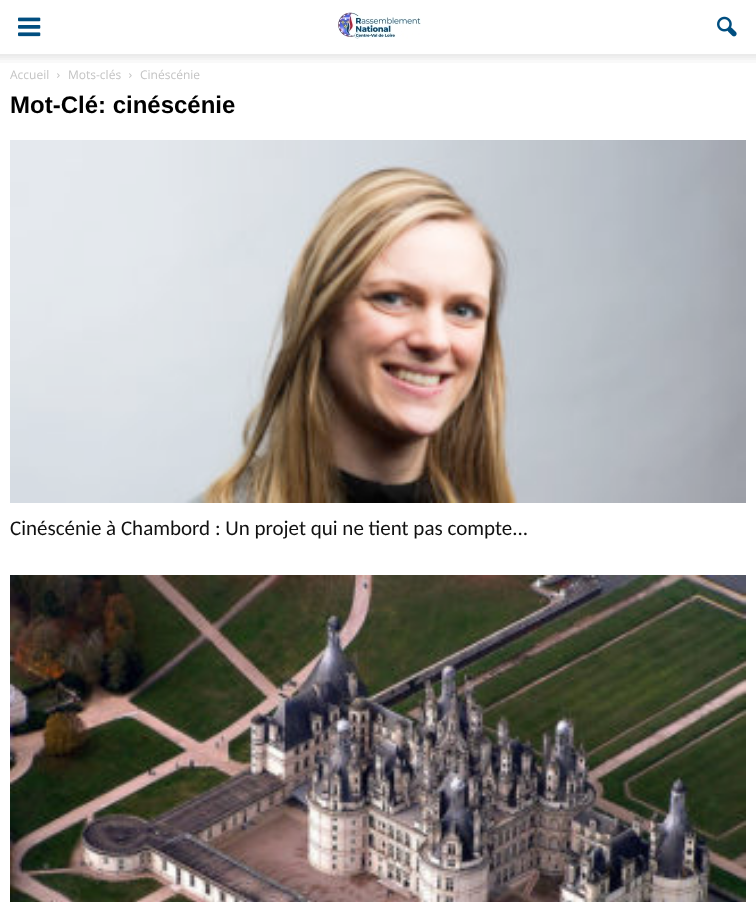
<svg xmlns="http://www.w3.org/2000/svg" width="756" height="902">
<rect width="100%" height="100%" fill="#fff"/>
<image x="18" y="17" width="23" height="20" href="media/1.png"/>
<image x="338" y="12" width="83" height="27" href="media/2.png"/>
<image x="717" y="16" width="20" height="21" href="media/3.png"/>
<image x="0" y="54" width="756" height="9" href="media/4.png"/>
<text x="10" y="79" style="font-family:Open Sans;font-size:12px;fill:#c3c3c3">Accueil</text>
<image x="57" y="73" width="3" height="5" href="media/5.png"/>
<text x="68" y="79" style="font-family:Open Sans;font-size:12px;fill:#c3c3c3">Mots-clés</text>
<image x="129" y="73" width="3" height="5" href="media/5.png"/>
<text x="140" y="79" style="font-family:Open Sans;font-size:12px;fill:#c3c3c3">Cinéscénie</text>
<text x="10" y="113" style="font-family:Liberation Sans;font-size:24px;font-weight:bold;fill:#000">Mot-Clé: cinéscénie</text>
<image x="10" y="140" width="736" height="363" href="media/6.png"/>
<text x="10" y="535" style="font-family:Carlito;font-size:21px;fill:#111">Cinéscénie à Chambord : Un projet qui ne tient pas compte...</text>
<image x="10" y="575" width="736" height="327" href="media/7.png"/>
</svg>
